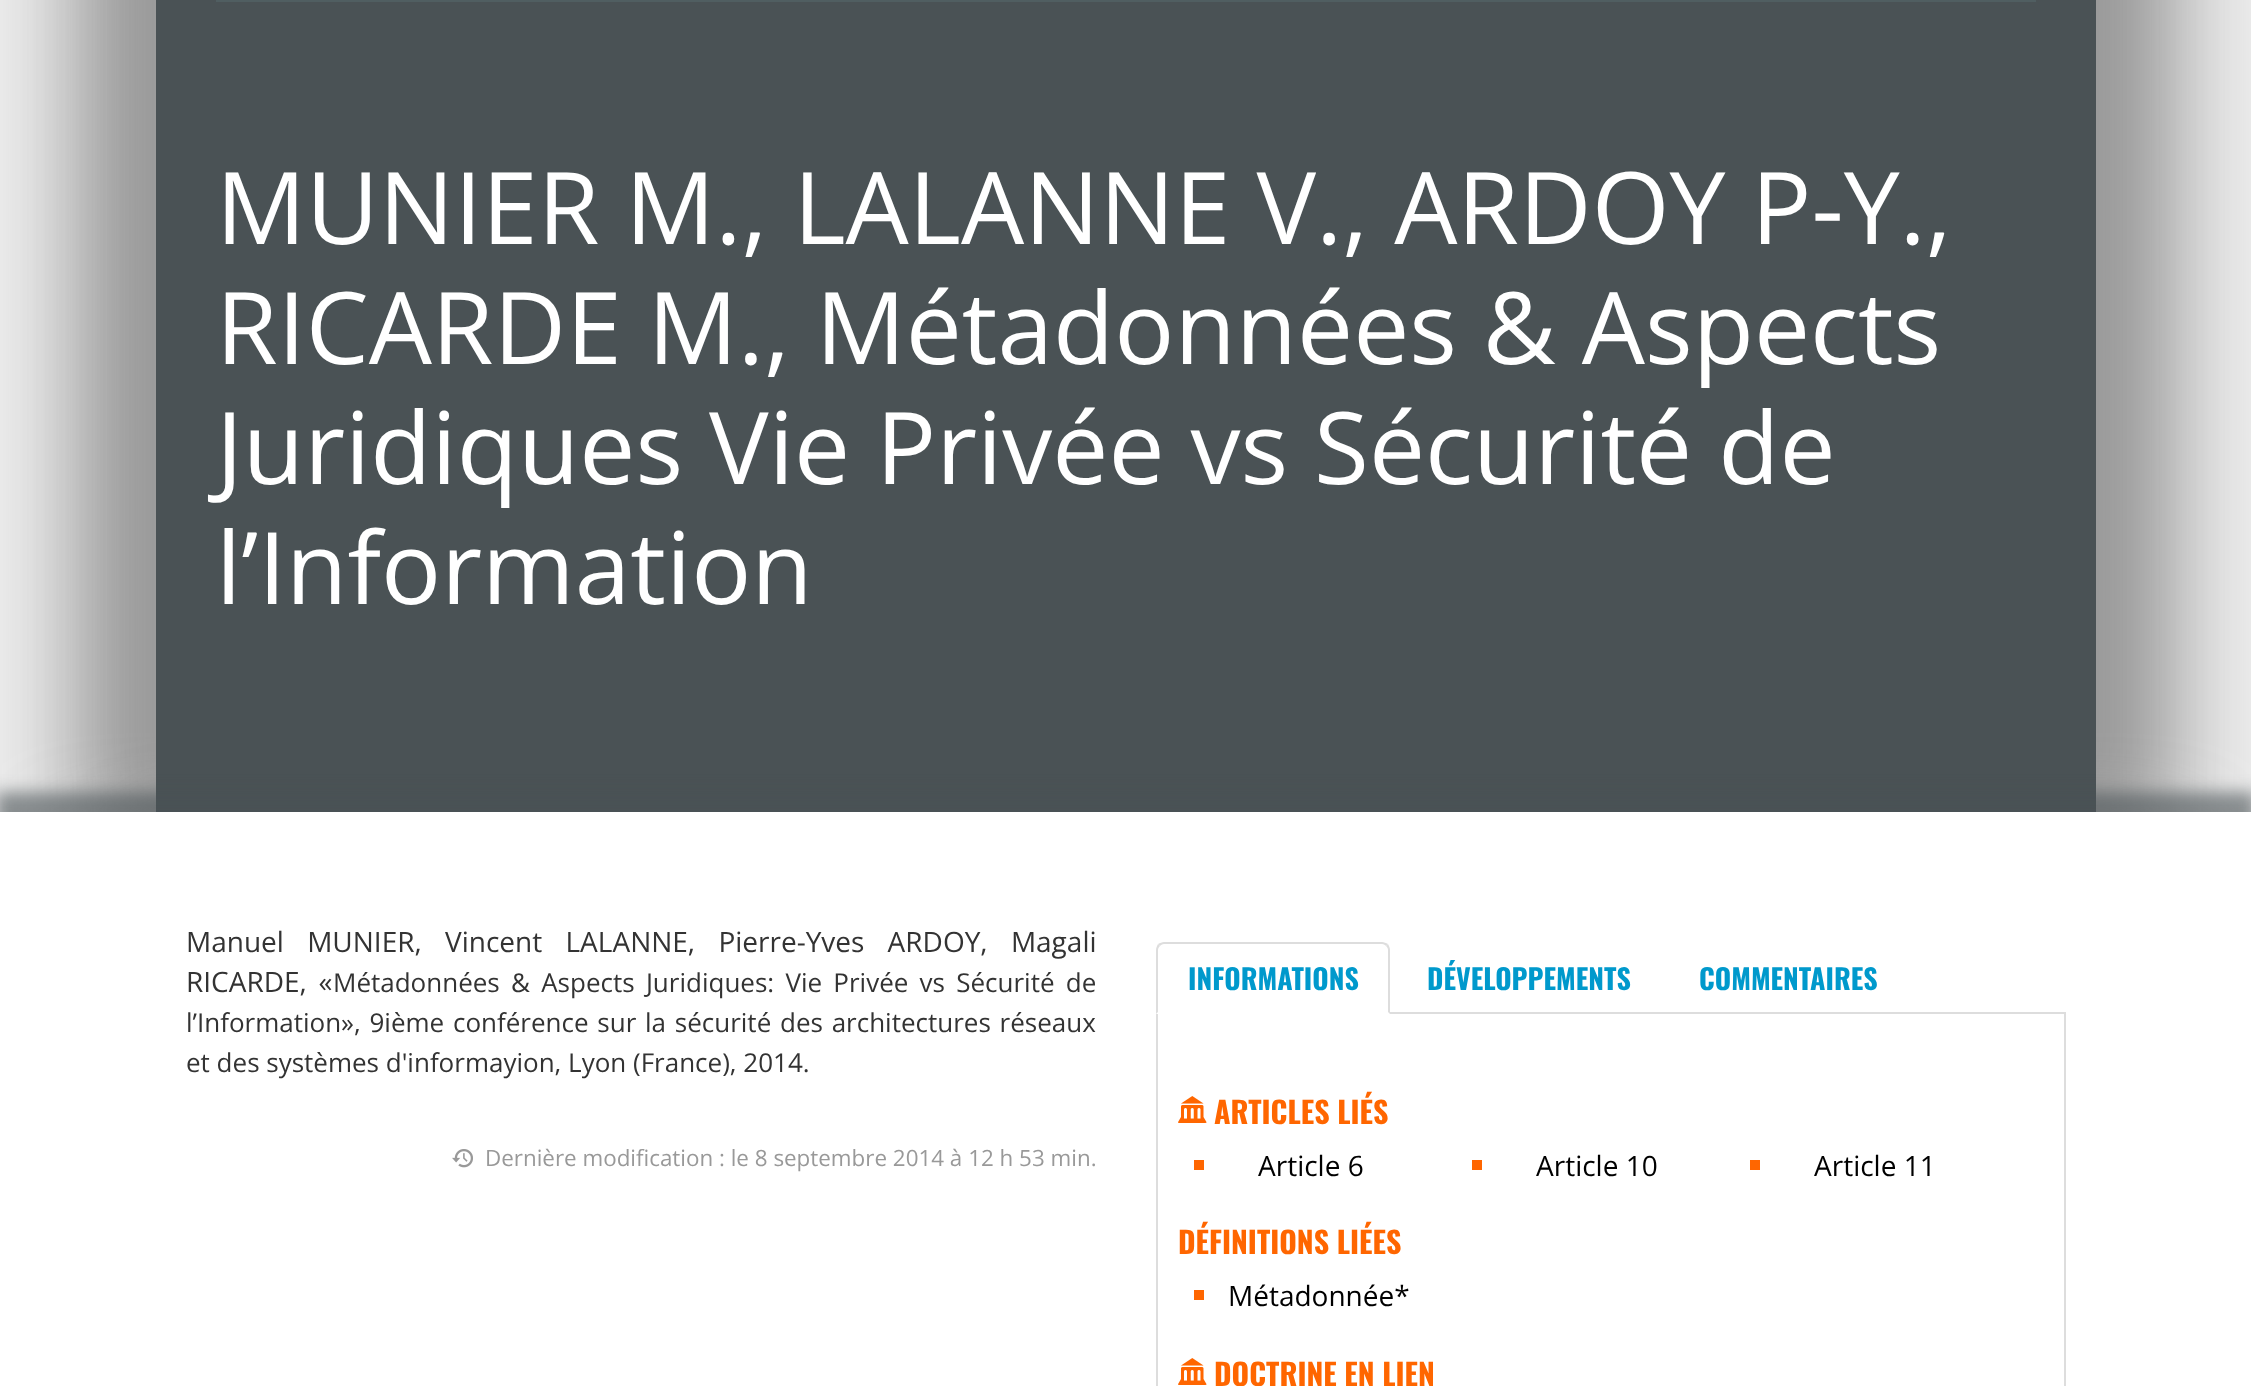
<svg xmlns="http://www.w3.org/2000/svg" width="2251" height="1386">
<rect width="100%" height="100%" fill="#eee"/>
<rect x="76" y="-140" width="2020" height="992" fill="#999" filter="blur(50px)"/>
<rect x="156" y="-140" width="2020" height="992" fill="#999" filter="blur(50px)"/>
<rect x="156" width="1940" height="812" fill="#4a5255"/>
<rect x="216" width="1820" height="2" fill="#505e61"/>
<text x="216" y="244" style="font-family:Open Sans;font-size:100px;fill:#fff">MUNIER M., LALANNE V., ARDOY P-Y.,</text>
<text x="216" y="364" style="font-family:Open Sans;font-size:100px;fill:#fff">RICARDE M., Métadonnées &amp; Aspects</text>
<text x="216" y="484" style="font-family:Open Sans;font-size:100px;fill:#fff">Juridiques Vie Privée vs Sécurité de</text>
<text x="216" y="604" style="font-family:Open Sans;font-size:100px;fill:#fff">l’Information</text>
<rect x="-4" y="792" width="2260" height="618" fill="#4a525599" filter="blur(8px)"/>
<rect y="812" width="2251" height="574" fill="#fff"/>
<text x="186" y="952" word-spacing="16" style="font-family:Open Sans;font-size:28px;fill:#333">Manuel MUNIER, Vincent LALANNE, Pierre-Yves ARDOY, Magali</text>
<text x="186" y="992" word-spacing="4.5" style="font-family:Open Sans;font-size:28px;fill:#333">RICARDE, «</text>
<text x="333" y="992" word-spacing="4.5" style="font-family:Open Sans;font-size:26px;fill:#333">Métadonnées &amp; Aspects Juridiques: Vie Privée vs Sécurité de</text>
<text x="186" y="1032" word-spacing="2" style="font-family:Open Sans;font-size:26px;fill:#333">l’Information», 9ième conférence sur la sécurité des architectures réseaux</text>
<text x="186" y="1072" style="font-family:Open Sans;font-size:26px;fill:#333">et des systèmes d'informayion, Lyon (France), 2014.</text>
<image x="452" y="1149" width="21" height="19" href="media/1.png"/>
<text x="485" y="1166" style="font-family:Open Sans;font-size:22.4px;fill:#999">Dernière modification : le 8 septembre 2014 à 12 h 53 min.</text>
<rect x="1390" y="1012" width="676" height="2" fill="#ddd"/>
<path d="M1164 942c-2 0-4 1-6 2l2 2c1-1 2-2 4-2h218c2 0 3 1 4 2l2-2c-2-1-4-2-6-2z" fill="#ddd"/>
<path d="M1390 1014v-64c0-2-1-4-2-6l-2 2c1 1 2 2 2 4v62z" fill="#ddd"/>
<path d="M1156 1014l2-2v-62c0-2 1-3 2-4l-2-2c-1 2-2 4-2 6z" fill="#ddd"/>
<text x="1188" y="990" style="font-family:Oswald;font-size:28px;font-weight:bold;fill:#09c">INFORMATIONS</text>
<text x="1427" y="990" style="font-family:Oswald;font-size:28px;font-weight:bold;fill:#09c">DÉVELOPPEMENTS</text>
<text x="1699" y="990" style="font-family:Oswald;font-size:28px;font-weight:bold;fill:#09c">COMMENTAIRES</text>
<rect x="2064" y="1014" width="2" height="372" fill="#ddd"/>
<rect x="1156" y="1014" width="2" height="372" fill="#ddd"/>
<image x="1178" y="1096" width="29" height="27" href="media/2.png"/>
<text x="1214" y="1124" style="font-family:Oswald;font-size:30px;font-weight:bold;fill:#f60">ARTICLES LIÉS</text>
<rect x="1194" y="1160" width="10" height="10" fill="#f60"/>
<text x="1258" y="1176" style="font-family:Open Sans;font-size:28px;fill:#000">Article 6</text>
<rect x="1472" y="1160" width="10" height="10" fill="#f60"/>
<text x="1536" y="1176" style="font-family:Open Sans;font-size:28px;fill:#000">Article 10</text>
<rect x="1750" y="1160" width="10" height="10" fill="#f60"/>
<text x="1814" y="1176" style="font-family:Open Sans;font-size:28px;fill:#000">Article 11</text>
<text x="1178" y="1254" style="font-family:Oswald;font-size:30px;font-weight:bold;fill:#f60">DÉFINITIONS LIÉES</text>
<rect x="1194" y="1290" width="10" height="10" fill="#f60"/>
<text x="1228" y="1306" style="font-family:Open Sans;font-size:28px;fill:#000">Métadonnée*</text>
<image x="1178" y="1358" width="29" height="27" href="media/2.png"/>
<text x="1214" y="1386" style="font-family:Oswald;font-size:30px;font-weight:bold;fill:#f60">DOCTRINE EN LIEN</text>
</svg>
